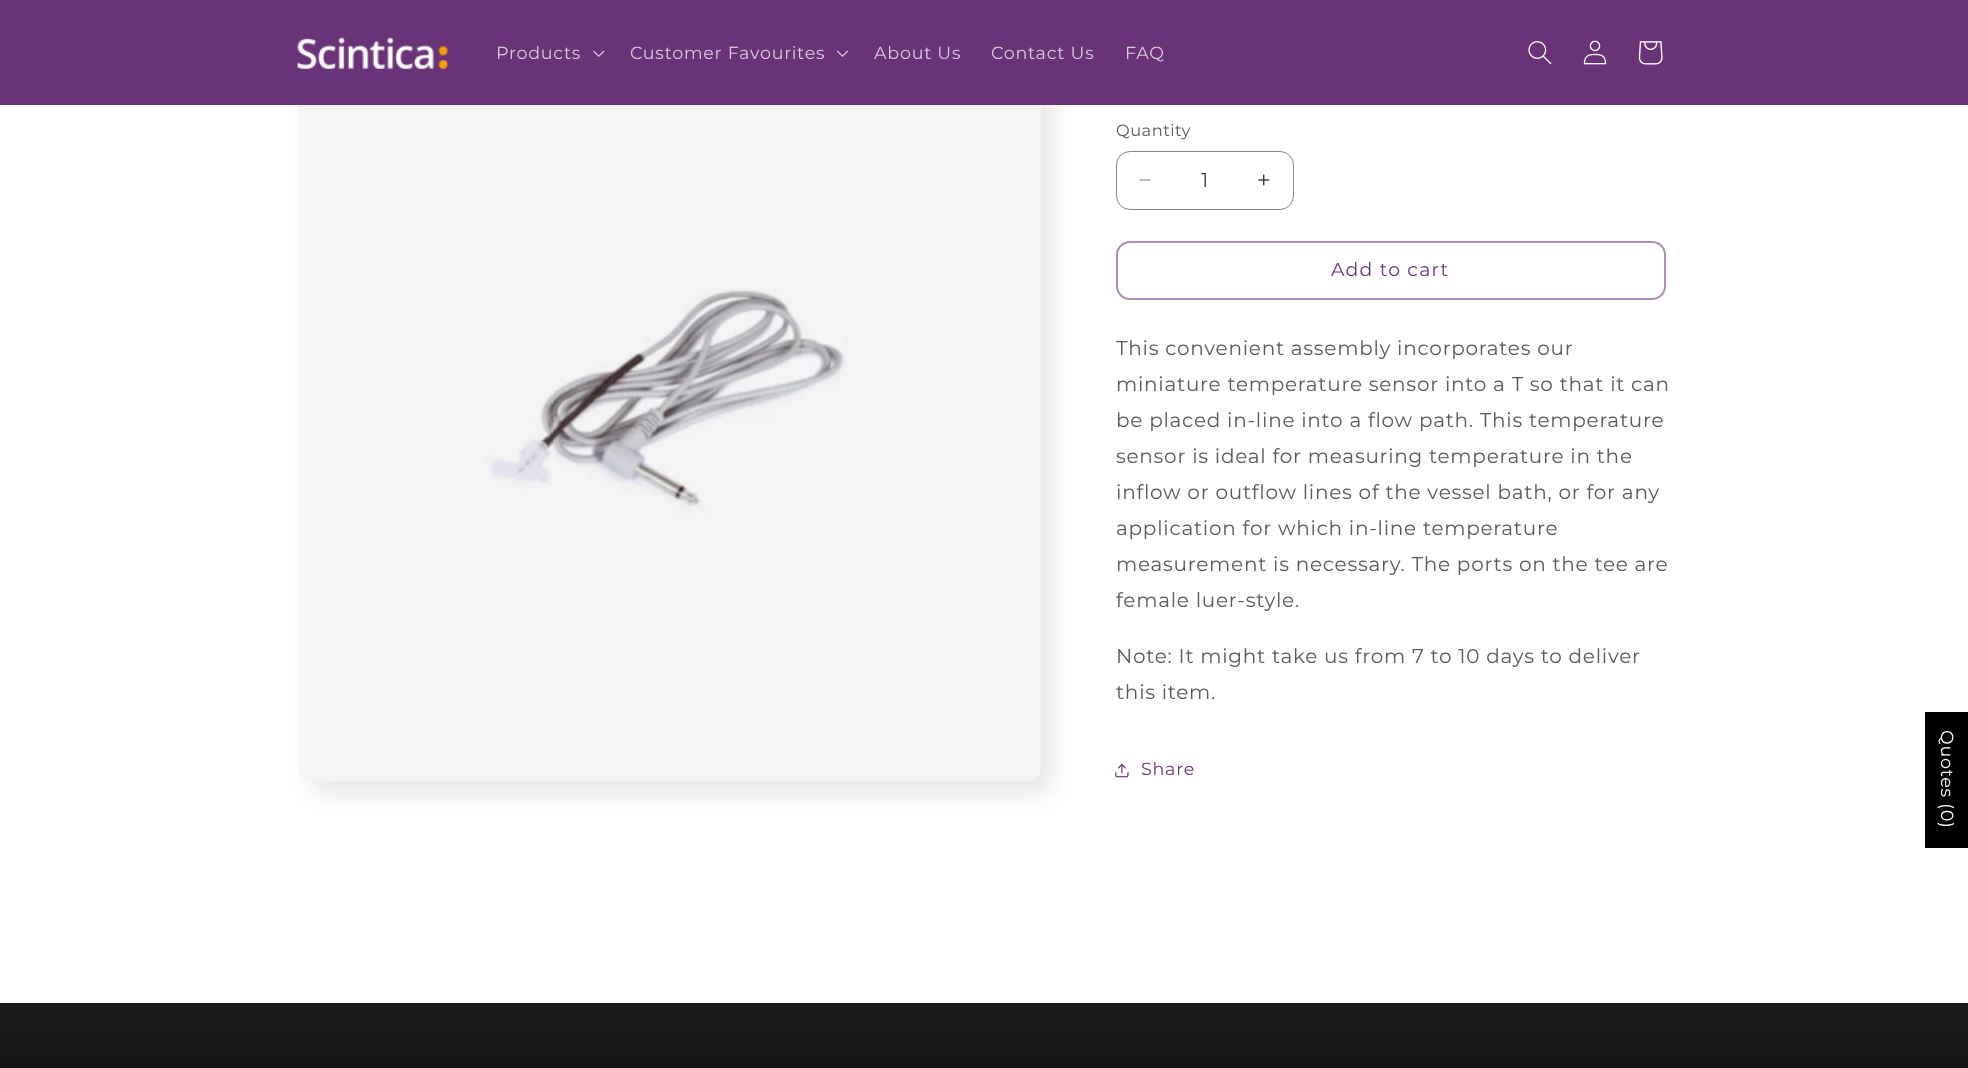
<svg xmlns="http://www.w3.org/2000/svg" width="1968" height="1068">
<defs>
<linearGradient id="g1" gradientUnits="userSpaceOnUse" x1="984" y1="0" x2="984" y2="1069"><stop offset="0" stop-color="#ececec"/><stop offset="0.35" stop-color="#636363"/><stop offset="1" stop-color="#141414"/></linearGradient>
</defs>
<rect width="100%" height="100%" fill="#fff"/>
<rect x="310" y="53" width="744" height="743" rx="15" fill="#2223241a" filter="blur(12.5px)"/>
<rect width="1968" height="105" fill="#6a3378"/>
<image x="297" y="37" width="151" height="32" href="media/1.png"/>
<text x="496" y="59" style="font-family:Montserrat;font-size:17.5px;letter-spacing:0.75px;fill:#daccdd">Products</text>
<image x="593" y="50" width="12" height="7" href="media/2.png"/>
<text x="630" y="59" style="font-family:Montserrat;font-size:17.5px;letter-spacing:0.75px;fill:#daccdd">Customer Favourites</text>
<image x="836" y="50" width="13" height="7" href="media/3.png"/>
<text x="874" y="59" style="font-family:Montserrat;font-size:17.5px;letter-spacing:0.75px;fill:#daccdd">About Us</text>
<text x="991" y="59" style="font-family:Montserrat;font-size:17.5px;letter-spacing:0.75px;fill:#daccdd">Contact Us</text>
<text x="1125" y="59" style="font-family:Montserrat;font-size:17.5px;letter-spacing:0.75px;fill:#daccdd">FAQ</text>
<image x="1528" y="41" width="24" height="24" href="media/4.png"/>
<image x="1583" y="40" width="24" height="25" href="media/5.png"/>
<image x="1638" y="41" width="25" height="24" href="media/6.png"/>
<image x="298" y="105" width="743" height="676" href="media/7.png"/>
<text x="1116" y="136" style="font-family:Montserrat;font-size:16.25px;letter-spacing:0.5px;fill:#595a5b">Quantity</text>
<image x="1139" y="179" width="12" height="2" href="media/8.png"/>
<image x="1258" y="174" width="12" height="12" href="media/9.png"/>
<rect x="1116.5" y="151.5" width="177" height="58" rx="13.5" fill="none" stroke="#858687"/>
<text x="1201" y="187" style="font-family:Montserrat;font-size:20px;fill:#434445">1</text>
<rect x="1117" y="242" width="548" height="57" rx="13" fill="none" stroke="#ad8fb5" stroke-width="2"/>
<text x="1331" y="276" style="font-family:Montserrat;font-size:18.75px;letter-spacing:1.25px;fill:#6a3378">Add to cart</text>
<text x="1116" y="355" style="font-family:Montserrat;font-size:20px;letter-spacing:0.75px;fill:#595a5b">This convenient assembly incorporates our</text>
<text x="1116" y="391" style="font-family:Montserrat;font-size:20px;letter-spacing:0.75px;fill:#595a5b">miniature temperature sensor into a T so that it can</text>
<text x="1116" y="427" style="font-family:Montserrat;font-size:20px;letter-spacing:0.75px;fill:#595a5b">be placed in-line into a flow path. This temperature</text>
<text x="1116" y="463" style="font-family:Montserrat;font-size:20px;letter-spacing:0.75px;fill:#595a5b">sensor is ideal for measuring temperature in the</text>
<text x="1116" y="499" style="font-family:Montserrat;font-size:20px;letter-spacing:0.75px;fill:#595a5b">inflow or outflow lines of the vessel bath, or for any</text>
<text x="1116" y="535" style="font-family:Montserrat;font-size:20px;letter-spacing:0.75px;fill:#595a5b">application for which in-line temperature</text>
<text x="1116" y="571" style="font-family:Montserrat;font-size:20px;letter-spacing:0.75px;fill:#595a5b">measurement is necessary. The ports on the tee are</text>
<text x="1116" y="607" style="font-family:Montserrat;font-size:20px;letter-spacing:0.75px;fill:#595a5b">female luer-style.</text>
<text x="1116" y="663" style="font-family:Montserrat;font-size:20px;letter-spacing:0.75px;fill:#595a5b">Note: It might take us from 7 to 10 days to deliver</text>
<text x="1116" y="699" style="font-family:Montserrat;font-size:20px;letter-spacing:0.75px;fill:#595a5b">this item.</text>
<image x="1115" y="763" width="14" height="15" href="media/10.png"/>
<text x="1141" y="775" style="font-family:Montserrat;font-size:17.5px;letter-spacing:0.75px;fill:#6a3378">Share</text>
<rect x="1925" y="712" width="43" height="136" fill="#000"/>
<text x="1941" y="730" transform="rotate(90 1941 730)" style="font-family:Montserrat;font-size:17.5px;letter-spacing:0.75px;fill:#fff">Quotes (0)</text>
<rect y="1003" width="1968" height="65" fill="url(#g1)"/>
</svg>
